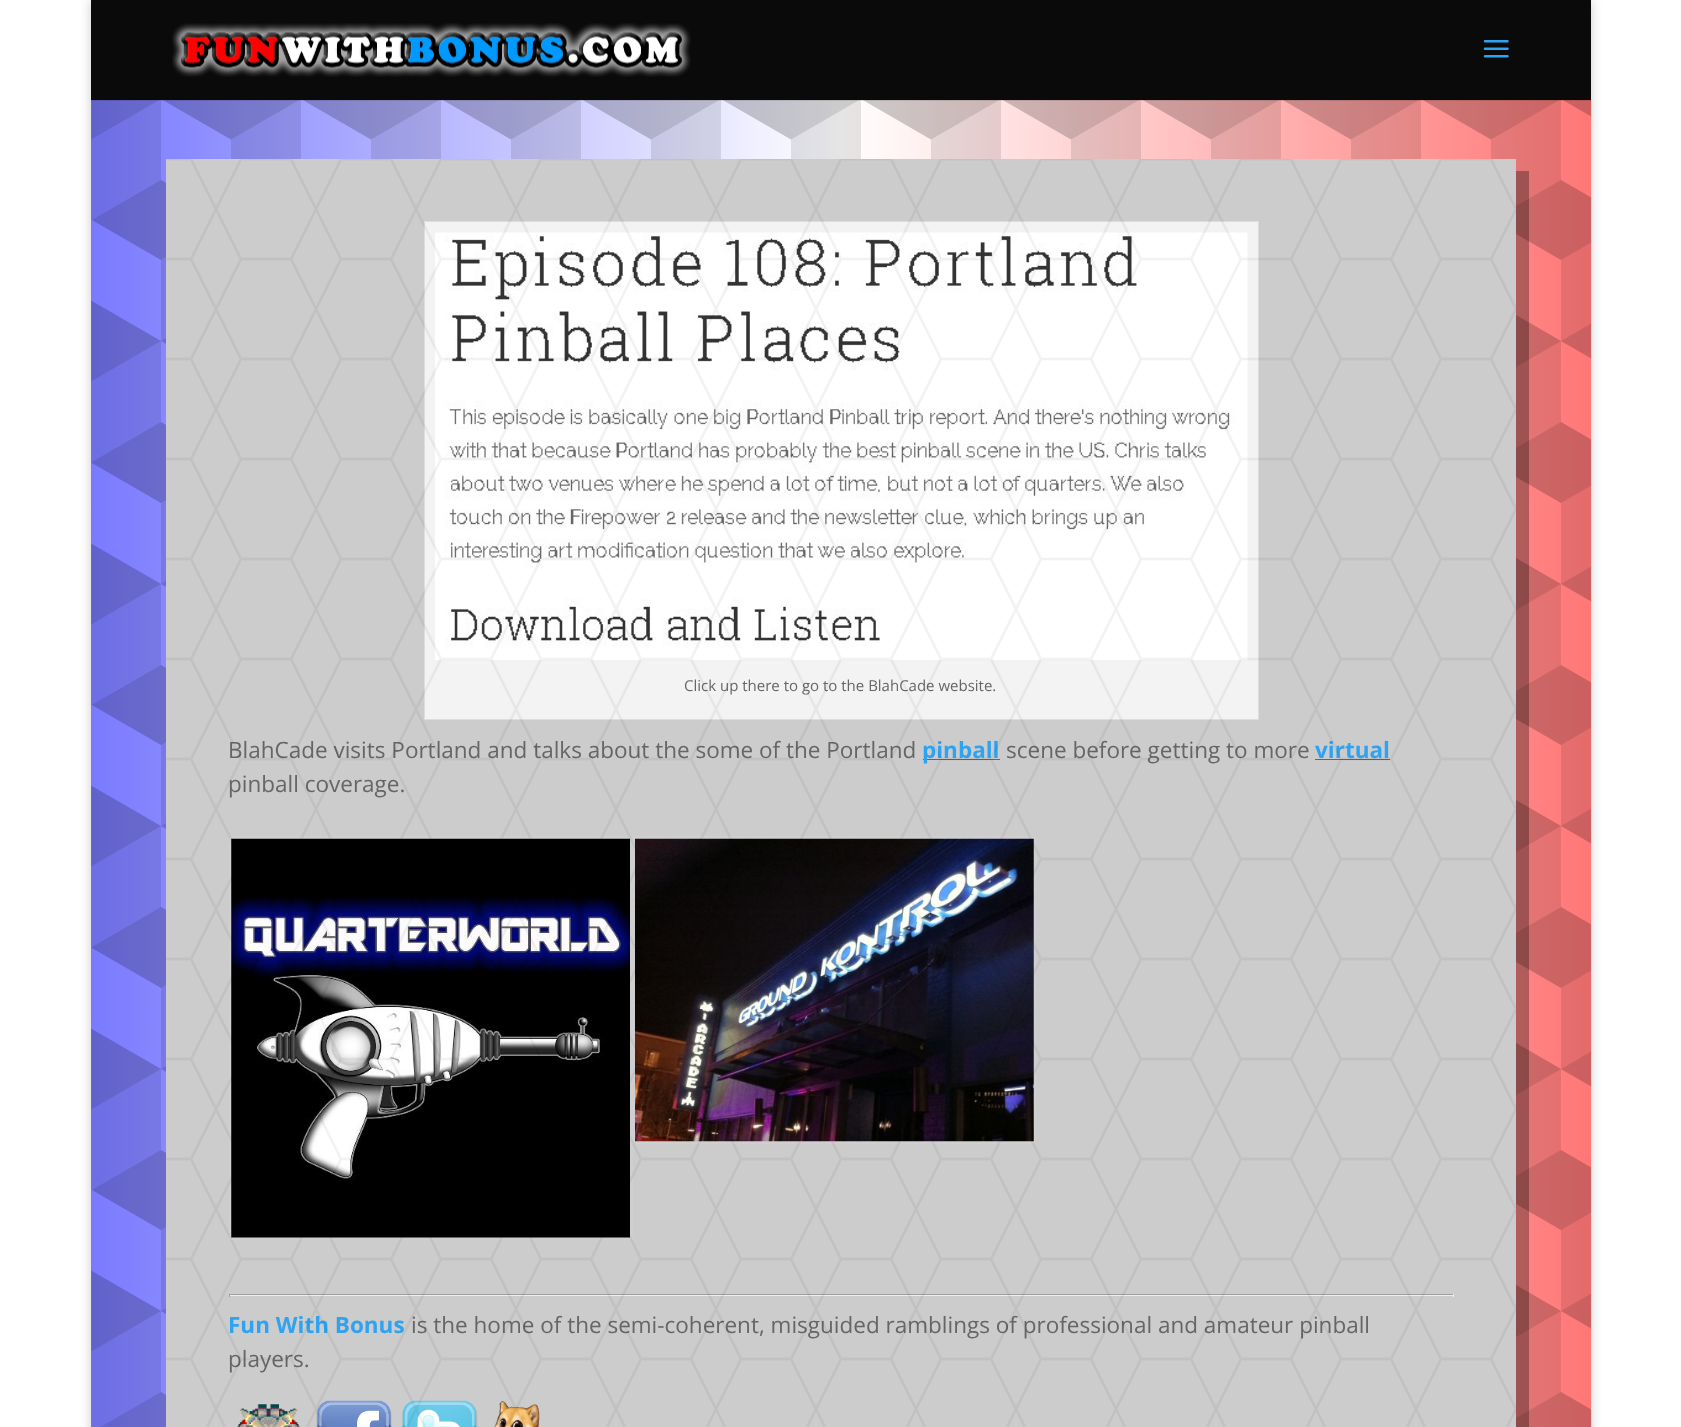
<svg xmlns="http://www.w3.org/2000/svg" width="1681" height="1427">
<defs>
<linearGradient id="g1" gradientUnits="userSpaceOnUse" x1="91" y1="1151" x2="1591" y2="1151"><stop offset="0" stop-color="#7a7aff"/><stop offset="0.5" stop-color="#fff"/><stop offset="1" stop-color="#f77"/></linearGradient>
</defs>
<rect width="100%" height="100%" fill="#fff"/>
<rect x="91" width="1500" height="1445" fill="#00000033" filter="blur(6px)"/>
<rect x="91" y="100" width="1500" height="1327" fill="url(#g1)"/>
<image x="91" y="99" width="1501" height="1328" href="media/3.png"/>
<path d="M91 1v100h1500v-1h-1500z" fill="#0000001a"/>
<rect x="91" width="1500" height="100" fill="#0a0a0a"/>
<image x="172" y="23" width="519" height="54" href="media/1.png"/>
<image x="1483" y="40" width="26" height="18" href="media/2.png"/>
<path d="M179 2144v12h1350v-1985h-13v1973z" fill="#0000004d"/>
<rect x="166" y="159" width="1350" height="1268" fill="#ccc"/>
<rect x="424.5" y="221.5" width="834" height="498" fill="#f3f3f3" stroke="#ddd"/>
<image x="435" y="232" width="813" height="428" href="media/5.png"/>
<text x="684" y="691" style="font-family:Open Sans;font-size:15px;fill:#666">Click up there to go to the BlahCade website.</text>
<text x="228" y="758" style="font-family:Open Sans;font-size:22.5px;fill:#666">BlahCade visits Portland and talks about the some of the Portland</text>
<rect x="923" y="759" width="77" height="1" fill="#666"/>
<text x="922" y="758" style="font-family:Open Sans;font-size:22.5px;font-weight:bold;fill:#2ea3f2">pinball</text>
<text x="1006" y="758" style="font-family:Open Sans;font-size:22.5px;fill:#666">scene before getting to more</text>
<text x="1315" y="758" style="font-family:Open Sans;font-size:22.5px;font-weight:bold;fill:#2ea3f2">virtual</text>
<rect x="1315" y="759" width="75" height="1" fill="#666"/>
<text x="228" y="792" style="font-family:Open Sans;font-size:22.5px;fill:#666">pinball coverage.</text>
<rect x="230.5" y="837.5" width="401" height="401" fill="none" stroke="#cfcfcf" stroke-width="3"/>
<image x="231" y="838" width="399" height="400" href="media/6.png"/>
<rect x="634.5" y="837.5" width="400" height="305" fill="none" stroke="#cfcfcf" stroke-width="3"/>
<image x="635" y="838" width="399" height="304" href="media/7.png"/>
<rect x="229" y="1294" width="1225" height="1" fill="#9f9f9f"/>
<rect x="1453" y="1294" width="1" height="3" fill="#eee"/>
<rect x="229" y="1295" width="1225" height="1" fill="#eee"/>
<rect x="229" y="1294" width="1" height="3" fill="#9f9f9f"/>
<text x="228" y="1333" style="font-family:Open Sans;font-size:22.5px;font-weight:bold;fill:#2ea3f2">Fun With Bonus</text>
<text x="411" y="1333" style="font-family:Open Sans;font-size:22.5px;fill:#666">is the home of the semi-coherent, misguided ramblings of professional and amateur pinball</text>
<text x="228" y="1367" style="font-family:Open Sans;font-size:22.5px;fill:#666">players.</text>
<image x="237" y="1404" width="64" height="23" href="media/8.png"/>
<image x="316" y="1400" width="76" height="27" href="media/9.png"/>
<image x="402" y="1400" width="76" height="27" href="media/10.png"/>
<image x="494" y="1401" width="46" height="26" href="media/11.png"/>
<image x="166" y="159" width="1350" height="1268" href="media/4.png"/>
</svg>
